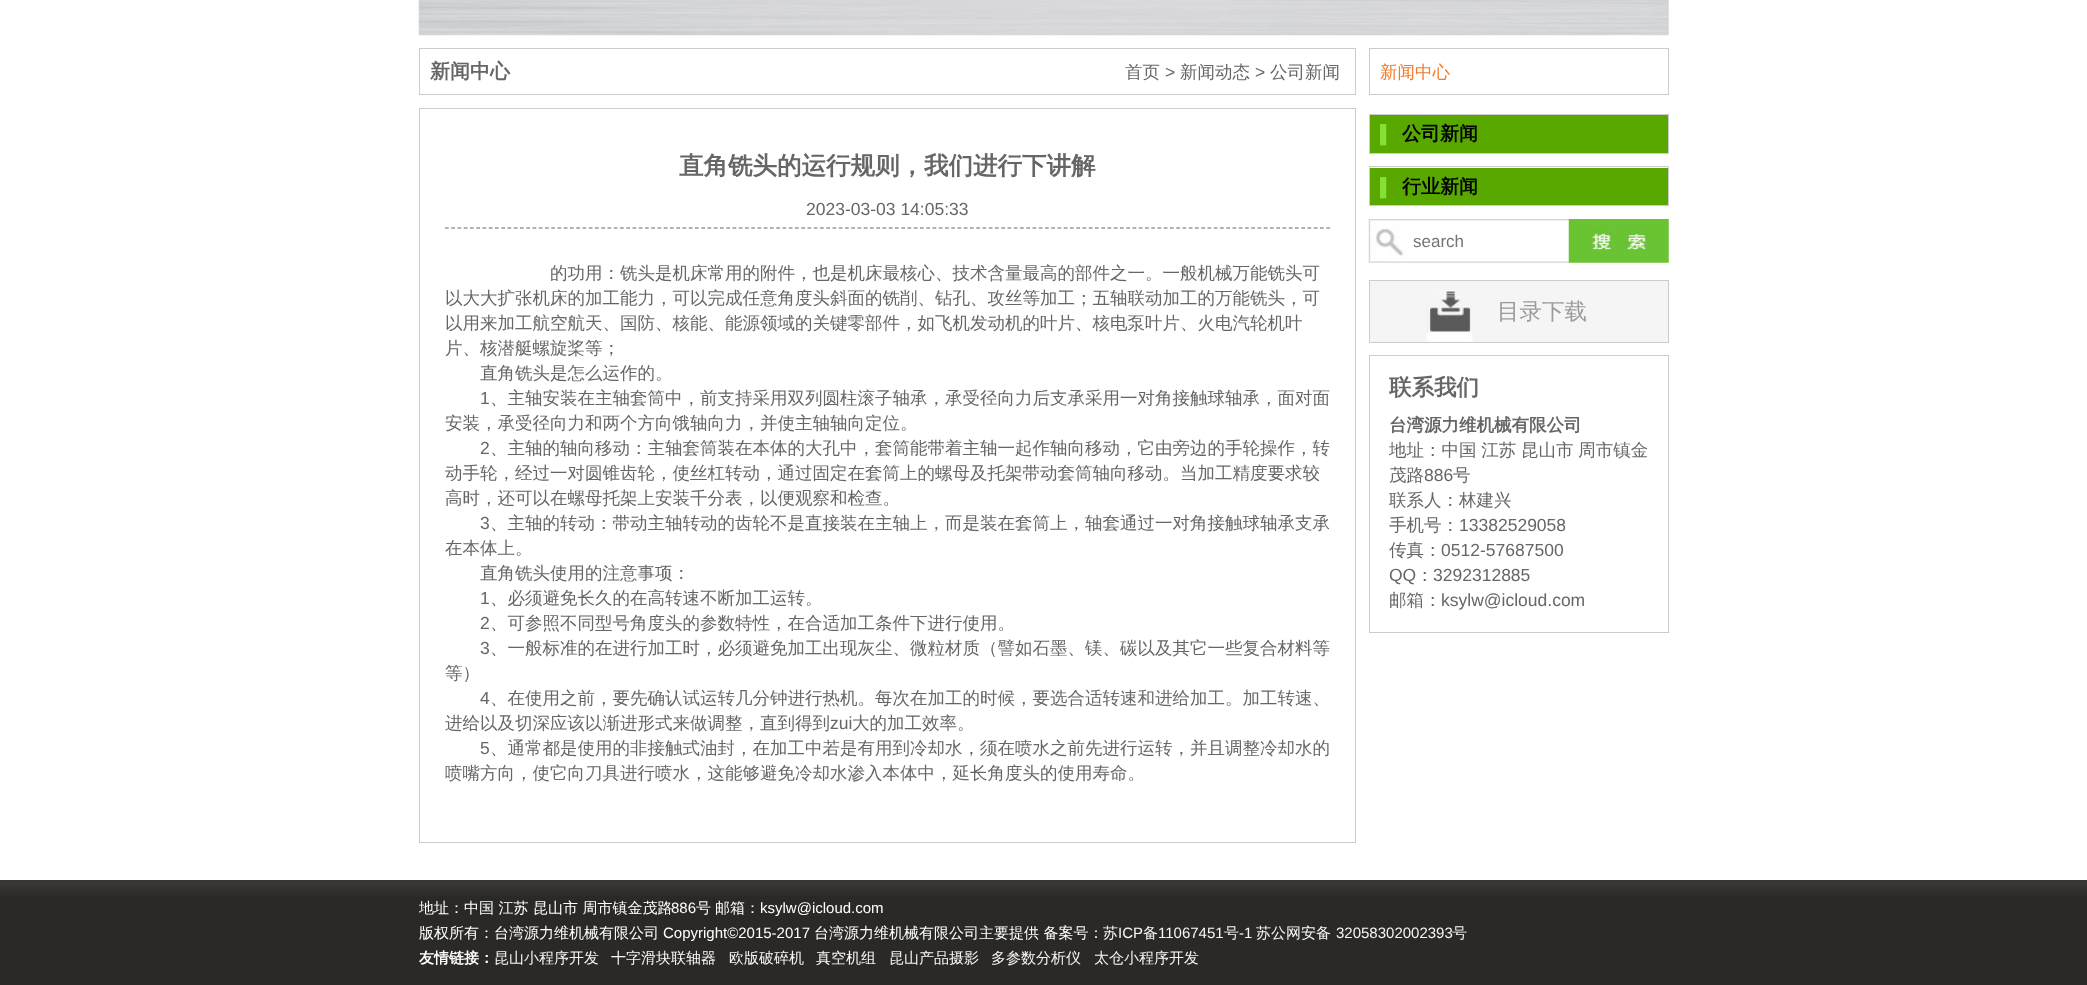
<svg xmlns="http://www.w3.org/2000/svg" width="2087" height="985">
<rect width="100%" height="100%" fill="#fff"/>
<image x="418" y="0" width="1251" height="36" href="media/1.png"/>
<rect x="419.5" y="48.5" width="936" height="46" fill="none" stroke="#ccc"/>
<text x="430" y="78" style="font-family:WenQuanYi Zen Hei;font-size:20px;font-weight:bold;fill:#666">新闻中心</text>
<text x="1125" y="78" style="font-family:WenQuanYi Zen Hei;font-size:17.5px;font-weight:500;fill:#666">首页</text>
<text x="1165" y="78" style="font-family:Liberation Sans;font-size:17.5px;fill:#666">&gt;</text>
<text x="1180" y="78" style="font-family:WenQuanYi Zen Hei;font-size:17.5px;font-weight:500;fill:#666">新闻动态</text>
<text x="1255" y="78" style="font-family:Liberation Sans;font-size:17.5px;fill:#666">&gt;</text>
<text x="1270" y="78" style="font-family:WenQuanYi Zen Hei;font-size:17.5px;font-weight:500;fill:#666">公司新闻</text>
<rect x="1369.5" y="48.5" width="299" height="46" fill="none" stroke="#ccc"/>
<text x="1380" y="78" style="font-family:WenQuanYi Zen Hei;font-size:17.5px;font-weight:500;fill:#f47929">新闻中心</text>
<rect x="419.5" y="108.5" width="936" height="734" fill="none" stroke="#ccc"/>
<text x="679" y="174" style="font-family:WenQuanYi Zen Hei;font-size:24.5px;font-weight:bold;fill:#666">直角铣头的运行规则，我们进行下讲解</text>
<text x="806" y="215" style="font-family:Liberation Sans;font-size:17.5px;fill:#666">2023-03-03 14:05:33</text>
<path d="M445 228h885" fill="none" stroke="#666" stroke-width="1.2" stroke-dasharray="3.75 2.5"/>
<text x="550" y="279" style="font-family:WenQuanYi Zen Hei;font-size:17.5px;font-weight:500;fill:#666">的功用：铣头是机床常用的附件，也是机床最核心、技术含量最高的部件之一。一般机械万能铣头可</text>
<text x="445" y="304" style="font-family:WenQuanYi Zen Hei;font-size:17.5px;font-weight:500;fill:#666">以大大扩张机床的加工能力，可以完成任意角度头斜面的铣削、钻孔、攻丝等加工；五轴联动加工的万能铣头，可</text>
<text x="445" y="329" style="font-family:WenQuanYi Zen Hei;font-size:17.5px;font-weight:500;fill:#666">以用来加工航空航天、国防、核能、能源领域的关键零部件，如飞机发动机的叶片、核电泵叶片、火电汽轮机叶</text>
<text x="445" y="354" style="font-family:WenQuanYi Zen Hei;font-size:17.5px;font-weight:500;fill:#666">片、核潜艇螺旋桨等；</text>
<text x="480" y="379" style="font-family:WenQuanYi Zen Hei;font-size:17.5px;font-weight:500;fill:#666">直角铣头是怎么运作的。</text>
<text x="480" y="404" style="font-family:Liberation Sans;font-size:17.5px;fill:#666">1</text>
<text x="490" y="404" style="font-family:WenQuanYi Zen Hei;font-size:17.5px;font-weight:500;fill:#666">、主轴安装在主轴套筒中，前支持采用双列圆柱滚子轴承，承受径向力后支承采用一对角接触球轴承，面对面</text>
<text x="445" y="429" style="font-family:WenQuanYi Zen Hei;font-size:17.5px;font-weight:500;fill:#666">安装，承受径向力和两个方向饿轴向力，并使主轴轴向定位。</text>
<text x="480" y="454" style="font-family:Liberation Sans;font-size:17.5px;fill:#666">2</text>
<text x="490" y="454" style="font-family:WenQuanYi Zen Hei;font-size:17.5px;font-weight:500;fill:#666">、主轴的轴向移动：主轴套筒装在本体的大孔中，套筒能带着主轴一起作轴向移动，它由旁边的手轮操作，转</text>
<text x="445" y="479" style="font-family:WenQuanYi Zen Hei;font-size:17.5px;font-weight:500;fill:#666">动手轮，经过一对圆锥齿轮，使丝杠转动，通过固定在套筒上的螺母及托架带动套筒轴向移动。当加工精度要求较</text>
<text x="445" y="504" style="font-family:WenQuanYi Zen Hei;font-size:17.5px;font-weight:500;fill:#666">高时，还可以在螺母托架上安装千分表，以便观察和检查。</text>
<text x="480" y="529" style="font-family:Liberation Sans;font-size:17.5px;fill:#666">3</text>
<text x="490" y="529" style="font-family:WenQuanYi Zen Hei;font-size:17.5px;font-weight:500;fill:#666">、主轴的转动：带动主轴转动的齿轮不是直接装在主轴上，而是装在套筒上，轴套通过一对角接触球轴承支承</text>
<text x="445" y="554" style="font-family:WenQuanYi Zen Hei;font-size:17.5px;font-weight:500;fill:#666">在本体上。</text>
<text x="480" y="579" style="font-family:WenQuanYi Zen Hei;font-size:17.5px;font-weight:500;fill:#666">直角铣头使用的注意事项：</text>
<text x="480" y="604" style="font-family:Liberation Sans;font-size:17.5px;fill:#666">1</text>
<text x="490" y="604" style="font-family:WenQuanYi Zen Hei;font-size:17.5px;font-weight:500;fill:#666">、必须避免长久的在高转速不断加工运转。</text>
<text x="480" y="629" style="font-family:Liberation Sans;font-size:17.5px;fill:#666">2</text>
<text x="490" y="629" style="font-family:WenQuanYi Zen Hei;font-size:17.5px;font-weight:500;fill:#666">、可参照不同型号角度头的参数特性，在合适加工条件下进行使用。</text>
<text x="480" y="654" style="font-family:Liberation Sans;font-size:17.5px;fill:#666">3</text>
<text x="490" y="654" style="font-family:WenQuanYi Zen Hei;font-size:17.5px;font-weight:500;fill:#666">、一般标准的在进行加工时，必须避免加工出现灰尘、微粒材质（譬如石墨、镁、碳以及其它一些复合材料等</text>
<text x="445" y="679" style="font-family:WenQuanYi Zen Hei;font-size:17.5px;font-weight:500;fill:#666">等）</text>
<text x="480" y="704" style="font-family:Liberation Sans;font-size:17.5px;fill:#666">4</text>
<text x="490" y="704" style="font-family:WenQuanYi Zen Hei;font-size:17.5px;font-weight:500;fill:#666">、在使用之前，要先确认试运转几分钟进行热机。每次在加工的时候，要选合适转速和进给加工。加工转速、</text>
<text x="445" y="729" style="font-family:WenQuanYi Zen Hei;font-size:17.5px;font-weight:500;fill:#666">进给以及切深应该以渐进形式来做调整，直到得到</text>
<text x="830" y="729" style="font-family:Liberation Sans;font-size:17.5px;fill:#666">zui</text>
<text x="852" y="729" style="font-family:WenQuanYi Zen Hei;font-size:17.5px;font-weight:500;fill:#666">大的加工效率。</text>
<text x="480" y="754" style="font-family:Liberation Sans;font-size:17.5px;fill:#666">5</text>
<text x="490" y="754" style="font-family:WenQuanYi Zen Hei;font-size:17.5px;font-weight:500;fill:#666">、通常都是使用的非接触式油封，在加工中若是有用到冷却水，须在喷水之前先进行运转，并且调整冷却水的</text>
<text x="445" y="779" style="font-family:WenQuanYi Zen Hei;font-size:17.5px;font-weight:500;fill:#666">喷嘴方向，使它向刀具进行喷水，这能够避免冷却水渗入本体中，延长角度头的使用寿命。</text>
<rect x="1369.5" y="114.5" width="299" height="39" fill="none" stroke="#ccc"/>
<rect x="1370" y="115" width="298" height="38" fill="#58a800"/>
<text x="1380" y="140" style="font-family:Liberation Sans;font-size:17.5px;fill:#86e137">▌</text>
<text x="1402" y="140" style="font-family:WenQuanYi Zen Hei;font-size:19px;font-weight:bold;fill:#000">公司新闻</text>
<rect x="1369.5" y="166.5" width="299" height="39" fill="none" stroke="#ccc"/>
<rect x="1370" y="168" width="298" height="37" fill="#58a800"/>
<text x="1380" y="193" style="font-family:Liberation Sans;font-size:17.5px;fill:#86e137">▌</text>
<text x="1402" y="193" style="font-family:WenQuanYi Zen Hei;font-size:19px;font-weight:bold;fill:#000">行业新闻</text>
<image x="1368" y="219" width="301" height="44" href="media/2.png"/>
<text x="1413" y="247" style="font-family:Liberation Sans;font-size:17px;fill:#757575">search</text>
<rect x="1369.5" y="280.5" width="299" height="62" fill="#f5f5f5" stroke="#ccc"/>
<image x="1426" y="290" width="47" height="52" href="media/3.png"/>
<text x="1497" y="319" style="font-family:WenQuanYi Zen Hei;font-size:22.5px;font-weight:500;fill:#9a9a9a">目录下载</text>
<rect x="1369.5" y="355.5" width="299" height="277" fill="none" stroke="#ccc"/>
<text x="1389" y="395" style="font-family:WenQuanYi Zen Hei;font-size:22.5px;font-weight:bold;fill:#666">联系我们</text>
<text x="1389" y="431" style="font-family:WenQuanYi Zen Hei;font-size:17.5px;font-weight:bold;fill:#666">台湾源力维机械有限公司</text>
<text x="1389" y="456" word-spacing="-0.5" style="font-family:WenQuanYi Zen Hei;font-size:17.5px;font-weight:500;fill:#666">地址：中国 江苏 昆山市 周市镇金</text>
<text x="1389" y="481" style="font-family:WenQuanYi Zen Hei;font-size:17.5px;font-weight:500;fill:#666">茂路</text>
<text x="1424" y="481" style="font-family:Liberation Sans;font-size:17.5px;fill:#666">886</text>
<text x="1453" y="481" style="font-family:WenQuanYi Zen Hei;font-size:17.5px;font-weight:500;fill:#666">号</text>
<text x="1389" y="506" style="font-family:WenQuanYi Zen Hei;font-size:17.5px;font-weight:500;fill:#666">联系人：林建兴</text>
<text x="1389" y="531" style="font-family:WenQuanYi Zen Hei;font-size:17.5px;font-weight:500;fill:#666">手机号：</text>
<text x="1459" y="531" style="font-family:Liberation Sans;font-size:17.5px;fill:#666">13382529058</text>
<text x="1389" y="556" style="font-family:WenQuanYi Zen Hei;font-size:17.5px;font-weight:500;fill:#666">传真：</text>
<text x="1441" y="556" style="font-family:Liberation Sans;font-size:17.5px;fill:#666">0512-57687500</text>
<text x="1389" y="581" style="font-family:Liberation Sans;font-size:17.5px;fill:#666">QQ</text>
<text x="1416" y="581" style="font-family:WenQuanYi Zen Hei;font-size:17.5px;font-weight:500;fill:#666">：</text>
<text x="1433" y="581" style="font-family:Liberation Sans;font-size:17.5px;fill:#666">3292312885</text>
<text x="1389" y="606" style="font-family:WenQuanYi Zen Hei;font-size:17.5px;font-weight:500;fill:#666">邮箱：</text>
<text x="1441" y="606" style="font-family:Liberation Sans;font-size:17.5px;fill:#666">ksylw@icloud.com</text>
<rect y="880" width="2087" height="105" fill="#2a2925"/>
<image x="0" y="880" width="2087" height="16" href="media/4.png"/>
<text x="419" y="913" style="font-family:WenQuanYi Zen Hei;font-size:15px;font-weight:500;fill:#fff">地址：中国 江苏 昆山市 周市镇金茂路</text>
<text x="671" y="913" style="font-family:Liberation Sans;font-size:15px;fill:#fff">886</text>
<text x="696" y="913" style="font-family:WenQuanYi Zen Hei;font-size:15px;font-weight:500;fill:#fff">号</text>
<text x="715" y="913" style="font-family:WenQuanYi Zen Hei;font-size:15px;font-weight:500;fill:#fff">邮箱：</text>
<text x="760" y="913" style="font-family:Liberation Sans;font-size:15px;fill:#fff">ksylw@icloud.com</text>
<text x="419" y="938" style="font-family:WenQuanYi Zen Hei;font-size:15px;font-weight:500;fill:#fff">版权所有：台湾源力维机械有限公司</text>
<text x="663" y="938" style="font-family:Liberation Sans;font-size:15px;fill:#fff">Copyright©2015-2017</text>
<text x="814" y="938" style="font-family:WenQuanYi Zen Hei;font-size:15px;font-weight:500;fill:#fff">台湾源力维机械有限公司主要提供 备案号：</text>
<text x="1103" y="938" style="font-family:WenQuanYi Zen Hei;font-size:15px;font-weight:500;fill:#f6f6f6">苏</text>
<text x="1118" y="938" style="font-family:Liberation Sans;font-size:15px;fill:#f6f6f6">ICP</text>
<text x="1143" y="938" style="font-family:WenQuanYi Zen Hei;font-size:15px;font-weight:500;fill:#f6f6f6">备</text>
<text x="1158" y="938" style="font-family:Liberation Sans;font-size:15px;fill:#f6f6f6">11067451</text>
<text x="1224" y="938" style="font-family:WenQuanYi Zen Hei;font-size:15px;font-weight:500;fill:#f6f6f6">号</text>
<text x="1239" y="938" style="font-family:Liberation Sans;font-size:15px;fill:#f6f6f6">-1</text>
<text x="1256" y="938" style="font-family:WenQuanYi Zen Hei;font-size:15px;font-weight:500;fill:#f6f6f6">苏公网安备</text>
<text x="1336" y="938" style="font-family:Liberation Sans;font-size:15px;fill:#f6f6f6">32058302002393</text>
<text x="1452" y="938" style="font-family:WenQuanYi Zen Hei;font-size:15px;font-weight:500;fill:#f6f6f6">号</text>
<text x="419" y="963" style="font-family:WenQuanYi Zen Hei;font-size:15px;font-weight:bold;fill:#fff">友情链接：</text>
<text x="494" y="963" style="font-family:WenQuanYi Zen Hei;font-size:15px;font-weight:500;fill:#f6f6f6">昆山小程序开发</text>
<text x="611" y="963" style="font-family:WenQuanYi Zen Hei;font-size:15px;font-weight:500;fill:#f6f6f6">十字滑块联轴器</text>
<text x="729" y="963" style="font-family:WenQuanYi Zen Hei;font-size:15px;font-weight:500;fill:#f6f6f6">欧版破碎机</text>
<text x="816" y="963" style="font-family:WenQuanYi Zen Hei;font-size:15px;font-weight:500;fill:#f6f6f6">真空机组</text>
<text x="889" y="963" style="font-family:WenQuanYi Zen Hei;font-size:15px;font-weight:500;fill:#f6f6f6">昆山产品摄影</text>
<text x="991" y="963" style="font-family:WenQuanYi Zen Hei;font-size:15px;font-weight:500;fill:#f6f6f6">多参数分析仪</text>
<text x="1094" y="963" style="font-family:WenQuanYi Zen Hei;font-size:15px;font-weight:500;fill:#f6f6f6">太仓小程序开发</text>
</svg>
